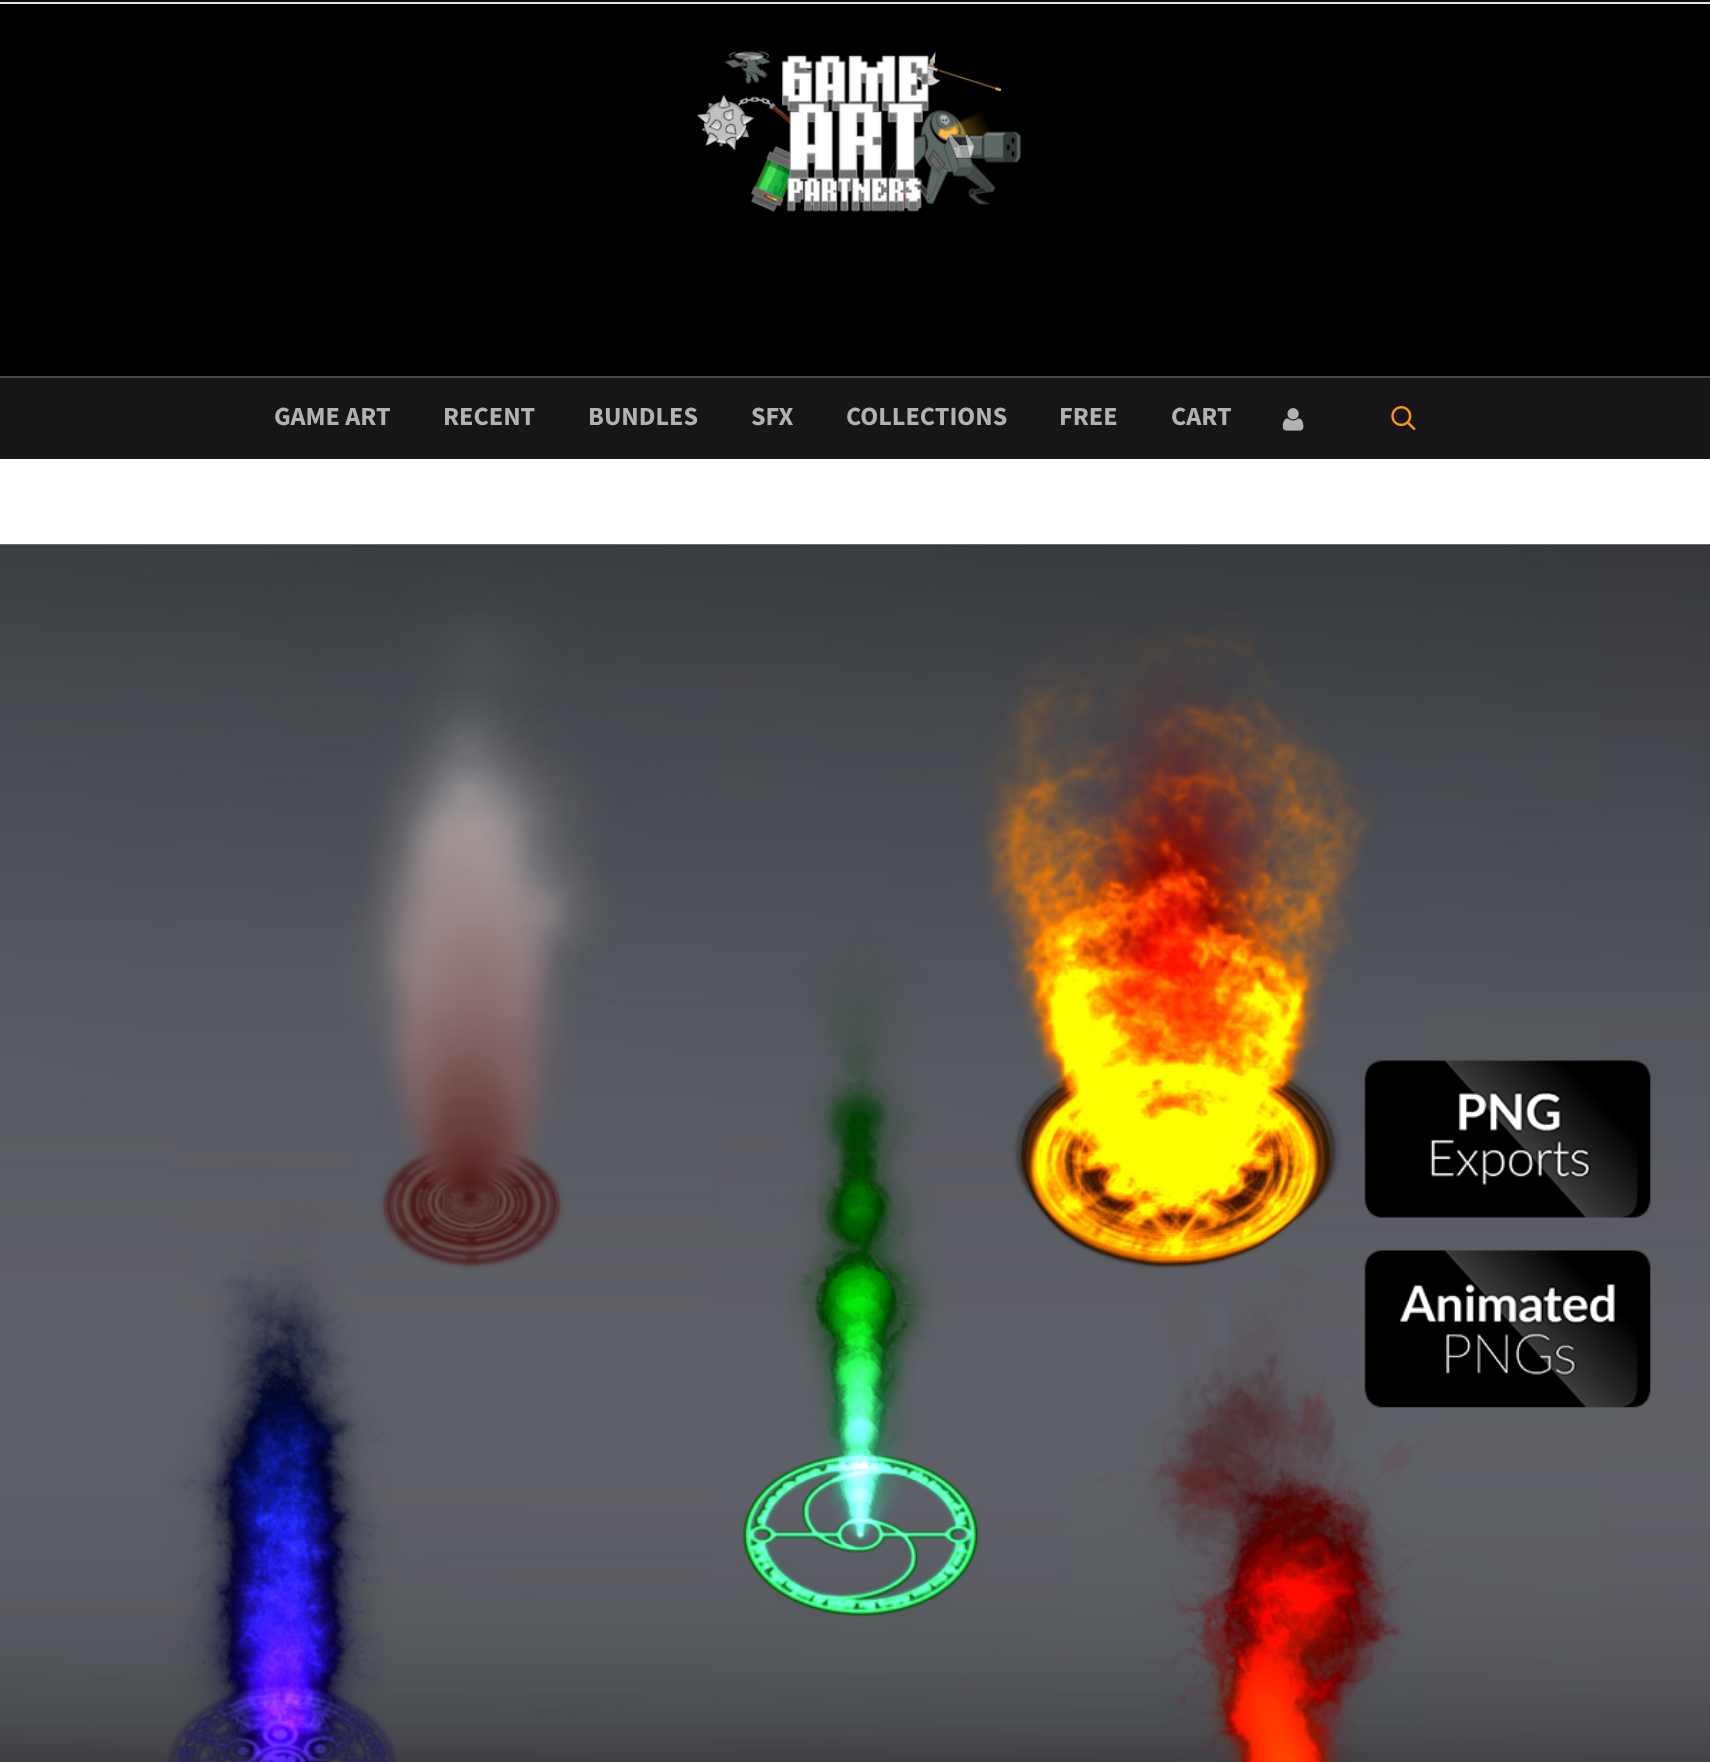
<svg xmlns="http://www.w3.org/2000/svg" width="1710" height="1762">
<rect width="100%" height="100%" fill="#0a0a0a"/>
<rect y="2" width="1710" height="2" fill="#e3e3e3"/>
<rect y="4" width="1710" height="372" fill="#000"/>
<image x="697" y="50" width="325" height="162" href="media/1.png"/>
<rect y="378" width="1710" height="81" fill="#161616"/>
<rect y="376" width="1710" height="2" fill="#494949"/>
<text x="274" y="425" style="font-family:Source Sans Pro;font-size:26.25px;font-weight:bold;fill:#b2b2b2">GAME ART</text>
<text x="443" y="425" style="font-family:Source Sans Pro;font-size:26.25px;font-weight:bold;fill:#b2b2b2">RECENT</text>
<text x="588" y="425" style="font-family:Source Sans Pro;font-size:26.25px;font-weight:bold;fill:#b2b2b2">BUNDLES</text>
<text x="751" y="425" style="font-family:Source Sans Pro;font-size:26.25px;font-weight:bold;fill:#b2b2b2">SFX</text>
<text x="846" y="425" style="font-family:Source Sans Pro;font-size:26.25px;font-weight:bold;fill:#b2b2b2">COLLECTIONS</text>
<text x="1059" y="425" style="font-family:Source Sans Pro;font-size:26.25px;font-weight:bold;fill:#b2b2b2">FREE</text>
<text x="1171" y="425" style="font-family:Source Sans Pro;font-size:26.25px;font-weight:bold;fill:#b2b2b2">CART</text>
<image x="1282" y="408" width="22" height="23" href="media/2.png"/>
<image x="1391" y="406" width="25" height="25" href="media/3.png"/>
<rect y="459" width="1710" height="86" fill="#fff"/>
<image x="0" y="544" width="1710" height="1218" href="media/4.png"/>
</svg>
